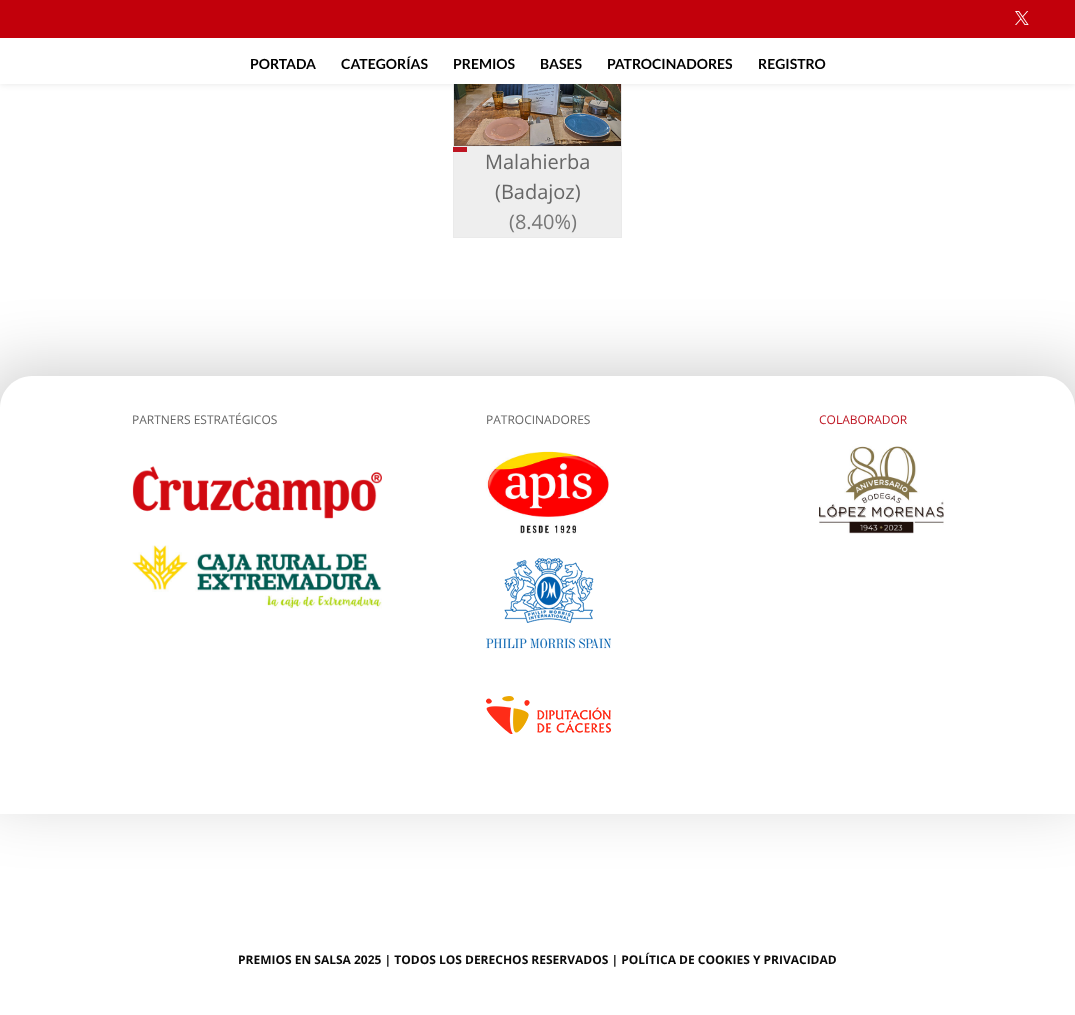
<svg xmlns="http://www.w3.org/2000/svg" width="1075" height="1015">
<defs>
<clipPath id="clip1"><path d="M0 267h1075v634h-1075zm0 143h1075v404h-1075z" clip-rule="evenodd"/></clipPath>
</defs>
<rect width="100%" height="100%" fill="#fff"/>
<rect x="453.5" y="34.5" width="168" height="112" fill="none" stroke="#eaeaea"/>
<image x="454" y="84" width="167" height="62" href="media/2.png"/>
<rect y="9" width="1075" height="75" fill="#0000001a" filter="blur(3.5px)"/>
<rect width="1075" height="38" fill="#c2000b"/>
<image x="1015" y="11" width="14" height="14" href="media/1.png"/>
<rect y="38" width="1075" height="46" fill="#fff"/>
<text x="250" y="69" style="font-family:Lato;font-size:14px;font-weight:bold;fill:#000">PORTADA</text>
<text x="341" y="69" style="font-family:Lato;font-size:14px;font-weight:bold;fill:#000">CATEGORÍAS</text>
<text x="453" y="69" style="font-family:Lato;font-size:14px;font-weight:bold;fill:#000">PREMIOS</text>
<text x="540" y="69" style="font-family:Lato;font-size:14px;font-weight:bold;fill:#000">BASES</text>
<text x="607" y="69" style="font-family:Lato;font-size:14px;font-weight:bold;fill:#000">PATROCINADORES</text>
<text x="758" y="69" style="font-family:Lato;font-size:14px;font-weight:bold;fill:#000">REGISTRO</text>
<rect x="454" y="152" width="167" height="85" fill="#eee"/>
<rect x="453.5" y="146.5" width="168" height="91" fill="none" stroke="#eaeaea"/>
<rect x="467" y="147" width="155" height="5" fill="#eee"/>
<rect x="453" y="147" width="14" height="5" fill="#be1522"/>
<text x="485" y="169" style="font-family:Open Sans;font-size:20px;fill:#666">Malahierba</text>
<text x="495" y="199" style="font-family:Open Sans;font-size:20px;fill:#666">(Badajoz)</text>
<text x="509" y="229" style="font-family:Open Sans;font-size:20px;fill:#777">(8.40%)</text>
<g clip-path="url(#clip1)">
<rect x="-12" y="370" width="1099" height="428" fill="#00000033" filter="blur(34px)"/>
</g>
<path d="M32 376h1011c17.5 0 32 14.5 32 32v4h-1075v-4c0-17.5 14.5-32 32-32z" fill="#fff"/>
<text x="132" y="424" style="font-family:Open Sans;font-size:12px;fill:#666">PARTNERS ESTRATÉGICOS</text>
<image x="132" y="466" width="250" height="53" href="media/3.png"/>
<image x="132" y="545" width="250" height="64" href="media/4.png"/>
<text x="486" y="424" style="font-family:Open Sans;font-size:12px;fill:#666">PATROCINADORES</text>
<image x="486" y="451" width="123" height="83" href="media/5.png"/>
<image x="486" y="558" width="125" height="91" href="media/6.png"/>
<image x="486" y="696" width="125" height="38" href="media/7.png"/>
<text x="819" y="424" style="font-family:Open Sans;font-size:12px;fill:#be1522">COLABORADOR</text>
<image x="819" y="446" width="125" height="88" href="media/8.png"/>
<text x="238" y="964" style="font-family:Open Sans;font-size:12px;font-weight:bold;fill:#0a0a0a">PREMIOS EN SALSA 2025 | TODOS LOS DERECHOS RESERVADOS | POLÍTICA DE COOKIES Y PRIVACIDAD</text>
</svg>
